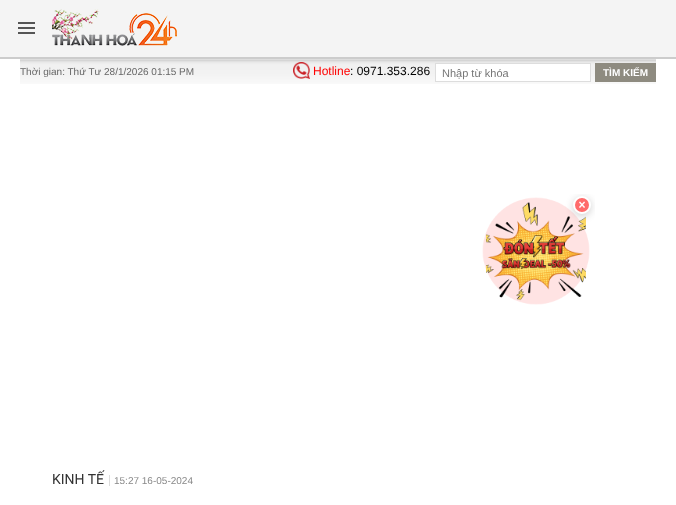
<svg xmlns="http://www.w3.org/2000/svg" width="676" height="505">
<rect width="100%" height="100%" fill="#fff"/>
<rect width="676" height="57" fill="#f4f4f4"/>
<rect y="57" width="676" height="2" fill="#ccc"/>
<image x="18" y="22" width="17" height="12" href="media/1.png"/>
<image x="52" y="9" width="125" height="37" href="media/2.png"/>
<image x="20" y="60" width="636" height="24" href="media/3.png"/>
<rect x="20" y="59" width="636" height="1" fill="#ddd"/>
<text x="20" y="75" style="font-family:Liberation Sans;font-size:10px;fill:#666">Thời gian: Thứ Tư 28/1/2026 01:15 PM</text>
<image x="293" y="62" width="17" height="17" href="media/4.png"/>
<text x="313" y="75" style="font-family:Liberation Sans;font-size:12px;fill:#f00">Hotline</text>
<text x="350" y="75" style="font-family:Liberation Sans;font-size:12px;fill:#000">: 0971.353.286</text>
<rect x="435.5" y="63.5" width="155" height="18" fill="#fff" stroke="#ddd"/>
<text x="442" y="77" style="font-family:Liberation Sans;font-size:11px;fill:#757575">Nhập từ khóa</text>
<rect x="595" y="63" width="61" height="19" fill="#8e8b80"/>
<text x="603" y="76" style="font-family:Liberation Sans;font-size:10px;font-weight:bold;fill:#fff">TÌM KIẾM</text>
<text x="52" y="484" style="font-family:Roboto;font-size:14px;fill:#333">KINH TẾ</text>
<text x="114" y="484" style="font-family:Liberation Sans;font-size:10px;fill:#888">15:27 16-05-2024</text>
<rect x="109" y="475" width="1" height="11" fill="#ddd"/>
<image x="482" y="194" width="113" height="111" href="media/5.png"/>
</svg>
